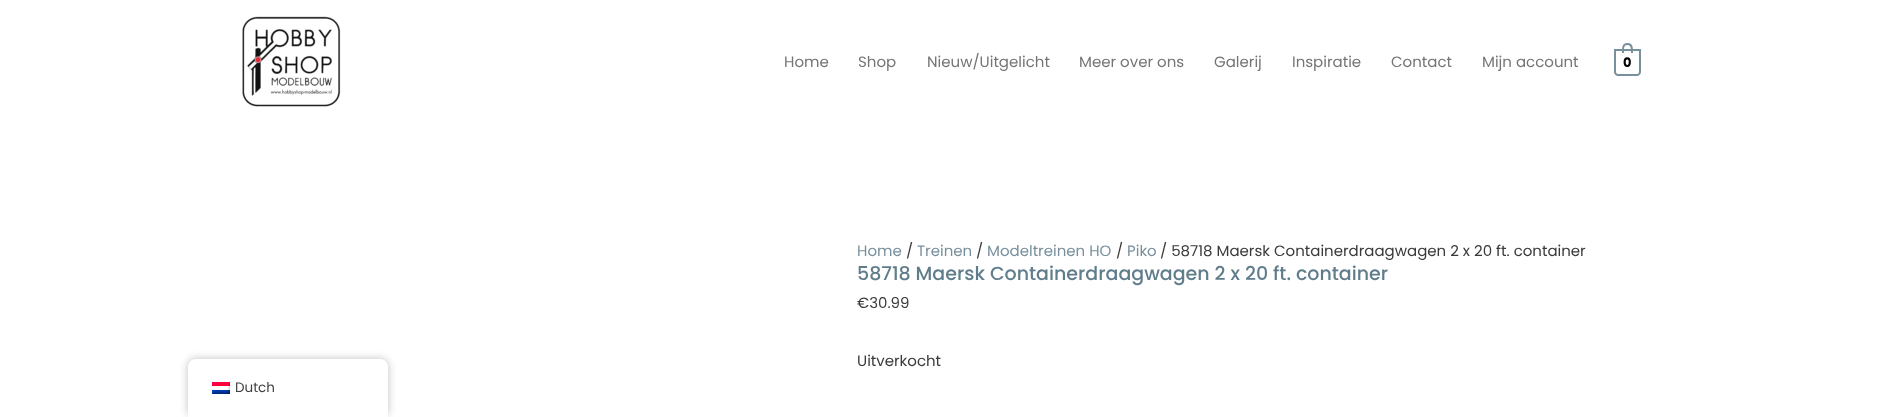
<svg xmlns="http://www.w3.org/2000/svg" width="1882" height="417">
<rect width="100%" height="100%" fill="#fff"/>
<image x="242" y="16" width="99" height="91" href="media/1.png"/>
<text x="784" y="67" style="font-family:Poppins;font-size:15px;fill:#757575">Home</text>
<text x="858" y="67" style="font-family:Poppins;font-size:15px;fill:#757575">Shop</text>
<text x="927" y="67" style="font-family:Poppins;font-size:15px;fill:#757575">Nieuw/Uitgelicht</text>
<text x="1079" y="67" style="font-family:Poppins;font-size:15px;fill:#757575">Meer over ons</text>
<text x="1214" y="67" style="font-family:Poppins;font-size:15px;fill:#757575">Galerij</text>
<text x="1292" y="67" style="font-family:Poppins;font-size:15px;fill:#757575">Inspiratie</text>
<text x="1391" y="67" style="font-family:Poppins;font-size:15px;fill:#757575">Contact</text>
<text x="1482" y="67" style="font-family:Poppins;font-size:15px;fill:#757575">Mijn account</text>
<path d="M1615 50h25v22c0 1.5-1.5 3-3 3h-19c-1.5 0-3-1.5-3-3z" fill="none" stroke="#78909c" stroke-width="2"/>
<path d="M1627.5 43c6 0 5.5 6 5.5 10h-11c0-4-.5-10 5.5-10zm0 2c4 0 3.5 5 3.5 8h-7c0-3-1-8 3.5-8z" fill="#78909c" fill-rule="evenodd"/>
<text x="1623" y="67" style="font-family:Poppins;font-size:13px;font-weight:bold;fill:#000">0</text>
<text x="857" y="256" style="font-family:Poppins;font-size:15px;fill:#78909c">Home</text>
<text x="906" y="256" style="font-family:Poppins;font-size:15px;fill:#3a3a3a">/</text>
<text x="917" y="256" style="font-family:Poppins;font-size:15px;fill:#78909c">Treinen</text>
<text x="976" y="256" style="font-family:Poppins;font-size:15px;fill:#3a3a3a">/</text>
<text x="987" y="256" style="font-family:Poppins;font-size:15px;fill:#78909c">Modeltreinen HO</text>
<text x="1116" y="256" style="font-family:Poppins;font-size:15px;fill:#3a3a3a">/</text>
<text x="1127" y="256" style="font-family:Poppins;font-size:15px;fill:#78909c">Piko</text>
<text x="1160" y="256" style="font-family:Poppins;font-size:15px;fill:#3a3a3a">/ 58718 Maersk Containerdraagwagen 2 x 20 ft. container</text>
<text x="857" y="280" style="font-family:Poppins;font-size:19px;font-weight:500;fill:#607d8b">58718 Maersk Containerdraagwagen 2 x 20 ft. container</text>
<text x="857" y="308" style="font-family:Poppins;font-size:15px;fill:#3a3a3a">€30.99</text>
<text x="857" y="366" style="font-family:Poppins;font-size:15px;fill:#3a3a3a">Uitverkocht</text>
<rect x="188" y="359" width="200" height="58" rx="8" fill="#00000040" filter="blur(4px)"/>
<path d="M196 359h184c4.5 0 8 3.5 8 8v50h-200v-50c0-4.5 3.5-8 8-8z" fill="#fff"/>
<image x="212" y="382" width="18" height="12" href="media/2.png"/>
<text x="235" y="392" style="font-family:Poppins;font-size:13.5px;fill:#404040">Dutch</text>
</svg>
